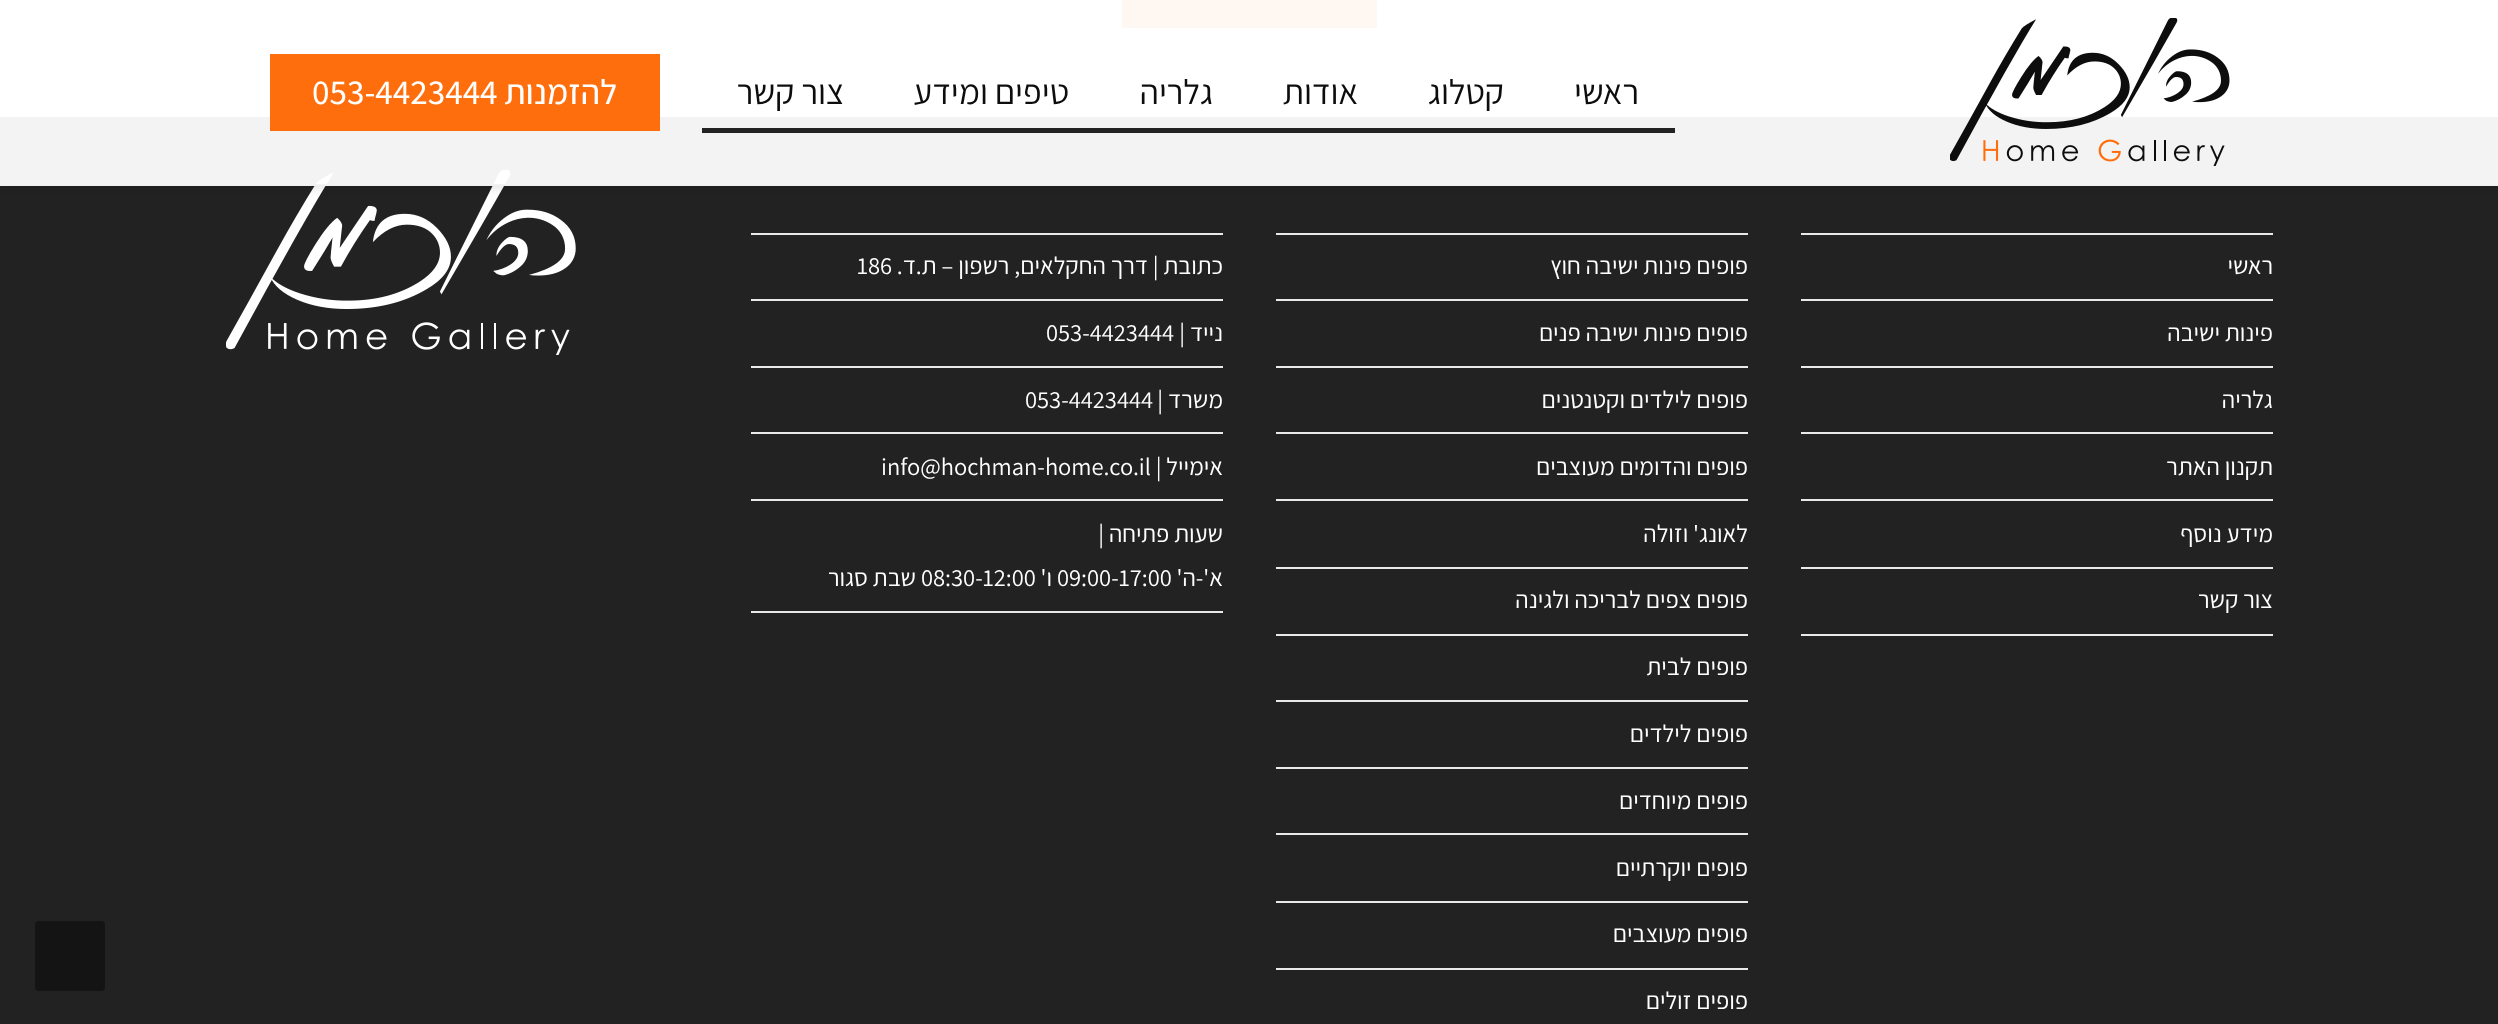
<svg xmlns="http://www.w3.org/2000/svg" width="2498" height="1024">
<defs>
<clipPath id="clip1"><path d="M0 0h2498v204h-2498zm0 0h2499v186h-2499z" clip-rule="evenodd"/></clipPath>
</defs>
<rect width="100%" height="100%" fill="#fff"/>
<rect x="1122" width="255" height="28" fill="#f60"/>
<rect y="117" width="2498" height="907" fill="#222"/>
<image x="226" y="170" width="350" height="185" href="media/2.png"/>
<g clip-path="url(#clip1)">
<rect y="4" width="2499" height="185" fill="#0000001a" filter="blur(4.5px)"/>
</g>
<rect width="2498" height="186" fill="#fffffff2"/>
<rect y="184" width="2498" height="2" fill="#f1f1f1f2"/>
<image x="1950" y="18" width="280" height="148" href="media/1.png"/>
<text x="1639" y="104" style="font-family:Assistant;font-size:35px;direction:rtl;fill:#0d0d0d">ראשי</text>
<rect x="702" y="128" width="973" height="5" fill="#222"/>
<text x="1504" y="104" style="font-family:Assistant;font-size:35px;direction:rtl;fill:#0d0d0d">קטלוג</text>
<text x="1358" y="104" style="font-family:Assistant;font-size:35px;direction:rtl;fill:#0d0d0d">אודות</text>
<text x="1213" y="104" style="font-family:Assistant;font-size:35px;direction:rtl;fill:#0d0d0d">גלריה</text>
<text x="1069" y="104" style="font-family:Assistant;font-size:35px;direction:rtl;fill:#0d0d0d">טיפים ומידע</text>
<text x="844" y="104" style="font-family:Assistant;font-size:35px;direction:rtl;fill:#0d0d0d">צור קשר</text>
<rect x="270" y="54" width="390" height="77" fill="#ff6600f2"/>
<text x="617" y="104" style="font-family:Assistant;font-size:35px;font-weight:500;direction:rtl;fill:#fff">להזמנות</text>
<text x="312" y="104" style="font-family:Assistant;font-size:35px;font-weight:500;fill:#fff">053-4423444</text>
<rect x="1801" y="233" width="472" height="2" fill="#e9e9e9"/>
<rect x="1801" y="299" width="472" height="2" fill="#e9e9e9"/>
<text x="2273" y="274" style="font-family:Assistant;font-size:24.5px;direction:rtl;fill:#fff">ראשי</text>
<rect x="1801" y="366" width="472" height="2" fill="#e9e9e9"/>
<text x="2273" y="341" style="font-family:Assistant;font-size:24.5px;direction:rtl;fill:#fff">פינות ישיבה</text>
<rect x="1801" y="432" width="472" height="2" fill="#e9e9e9"/>
<text x="2273" y="408" style="font-family:Assistant;font-size:24.5px;direction:rtl;fill:#fff">גלריה</text>
<rect x="1801" y="499" width="472" height="2" fill="#e9e9e9"/>
<text x="2273" y="475" style="font-family:Assistant;font-size:24.5px;direction:rtl;fill:#fff">תקנון האתר</text>
<rect x="1801" y="567" width="472" height="2" fill="#e9e9e9"/>
<text x="2273" y="542" style="font-family:Assistant;font-size:24.5px;direction:rtl;fill:#fff">מידע נוסף</text>
<rect x="1801" y="634" width="472" height="2" fill="#e9e9e9"/>
<text x="2273" y="608" style="font-family:Assistant;font-size:24.5px;direction:rtl;fill:#fff">צור קשר</text>
<rect x="1276" y="233" width="472" height="2" fill="#e9e9e9"/>
<rect x="1276" y="299" width="472" height="2" fill="#e9e9e9"/>
<text x="1748" y="274" style="font-family:Assistant;font-size:24.5px;direction:rtl;fill:#fff">פופים פינות ישיבה חוץ</text>
<rect x="1276" y="366" width="472" height="2" fill="#e9e9e9"/>
<text x="1748" y="341" style="font-family:Assistant;font-size:24.5px;direction:rtl;fill:#fff">פופים פינות ישיבה פנים</text>
<rect x="1276" y="432" width="472" height="2" fill="#e9e9e9"/>
<text x="1748" y="408" style="font-family:Assistant;font-size:24.5px;direction:rtl;fill:#fff">פופים לילדים וקטנטנים</text>
<rect x="1276" y="499" width="472" height="2" fill="#e9e9e9"/>
<text x="1748" y="475" style="font-family:Assistant;font-size:24.5px;direction:rtl;fill:#fff">פופים והדומים מעוצבים</text>
<rect x="1276" y="567" width="472" height="2" fill="#e9e9e9"/>
<text x="1748" y="542" style="font-family:Assistant;font-size:24.5px;direction:rtl;fill:#fff">לאונג' וזולה</text>
<rect x="1276" y="634" width="472" height="2" fill="#e9e9e9"/>
<text x="1748" y="608" style="font-family:Assistant;font-size:24.5px;direction:rtl;fill:#fff">פופים צפים לבריכה ולגינה</text>
<rect x="1276" y="700" width="472" height="2" fill="#e9e9e9"/>
<text x="1748" y="675" style="font-family:Assistant;font-size:24.5px;direction:rtl;fill:#fff">פופים לבית</text>
<rect x="1276" y="767" width="472" height="2" fill="#e9e9e9"/>
<text x="1748" y="742" style="font-family:Assistant;font-size:24.5px;direction:rtl;fill:#fff">פופים לילדים</text>
<rect x="1276" y="833" width="472" height="2" fill="#e9e9e9"/>
<text x="1748" y="809" style="font-family:Assistant;font-size:24.5px;direction:rtl;fill:#fff">פופים מיוחדים</text>
<rect x="1276" y="901" width="472" height="2" fill="#e9e9e9"/>
<text x="1748" y="876" style="font-family:Assistant;font-size:24.5px;direction:rtl;fill:#fff">פופים יוקרתיים</text>
<rect x="1276" y="968" width="472" height="2" fill="#e9e9e9"/>
<text x="1748" y="942" style="font-family:Assistant;font-size:24.5px;direction:rtl;fill:#fff">פופים מעוצבים</text>
<text x="1748" y="1009" style="font-family:Assistant;font-size:24.5px;direction:rtl;fill:#fff">פופים זולים</text>
<rect x="751" y="233" width="472" height="2" fill="#e9e9e9"/>
<rect x="751" y="299" width="472" height="2" fill="#e9e9e9"/>
<text x="1223" y="274" style="font-family:Assistant;font-size:24.5px;direction:rtl;fill:#fff">כתובת | דרך החקלאים, רשפון – ת.ד.</text>
<text x="857" y="274" style="font-family:Assistant;font-size:24.5px;fill:#fff">186</text>
<rect x="751" y="366" width="472" height="2" fill="#e9e9e9"/>
<text x="1223" y="341" style="font-family:Assistant;font-size:24.5px;direction:rtl;fill:#fff">נייד |</text>
<text x="1046" y="341" style="font-family:Assistant;font-size:24.5px;fill:#fff">053-4423444</text>
<rect x="751" y="432" width="472" height="2" fill="#e9e9e9"/>
<text x="1223" y="408" style="font-family:Assistant;font-size:24.5px;direction:rtl;fill:#fff">משרד |</text>
<text x="1025" y="408" style="font-family:Assistant;font-size:24.5px;fill:#fff">053-4423444</text>
<rect x="751" y="499" width="472" height="2" fill="#e9e9e9"/>
<text x="1223" y="475" style="font-family:Assistant;font-size:24.5px;direction:rtl;fill:#fff">אימייל |</text>
<text x="881" y="475" style="font-family:Assistant;font-size:24.5px;fill:#fff">info@hochman-home.co.il</text>
<rect x="751" y="611" width="472" height="2" fill="#e9e9e9"/>
<text x="1223" y="542" style="font-family:Assistant;font-size:24.5px;direction:rtl;fill:#fff">שעות פתיחה |</text>
<text x="1223" y="586" style="font-family:Assistant;font-size:24.5px;direction:rtl;fill:#fff">א'-ה'</text>
<text x="1057" y="586" style="font-family:Assistant;font-size:24.5px;fill:#fff">09:00-17:00</text>
<text x="1052" y="586" style="font-family:Assistant;font-size:24.5px;direction:rtl;fill:#fff">ו'</text>
<text x="921" y="586" style="font-family:Assistant;font-size:24.5px;fill:#fff">08:30-12:00</text>
<text x="916" y="586" style="font-family:Assistant;font-size:24.5px;direction:rtl;fill:#fff">שבת סגור</text>
<rect x="35" y="921" width="70" height="70" rx="4" fill="#141414"/>
</svg>
